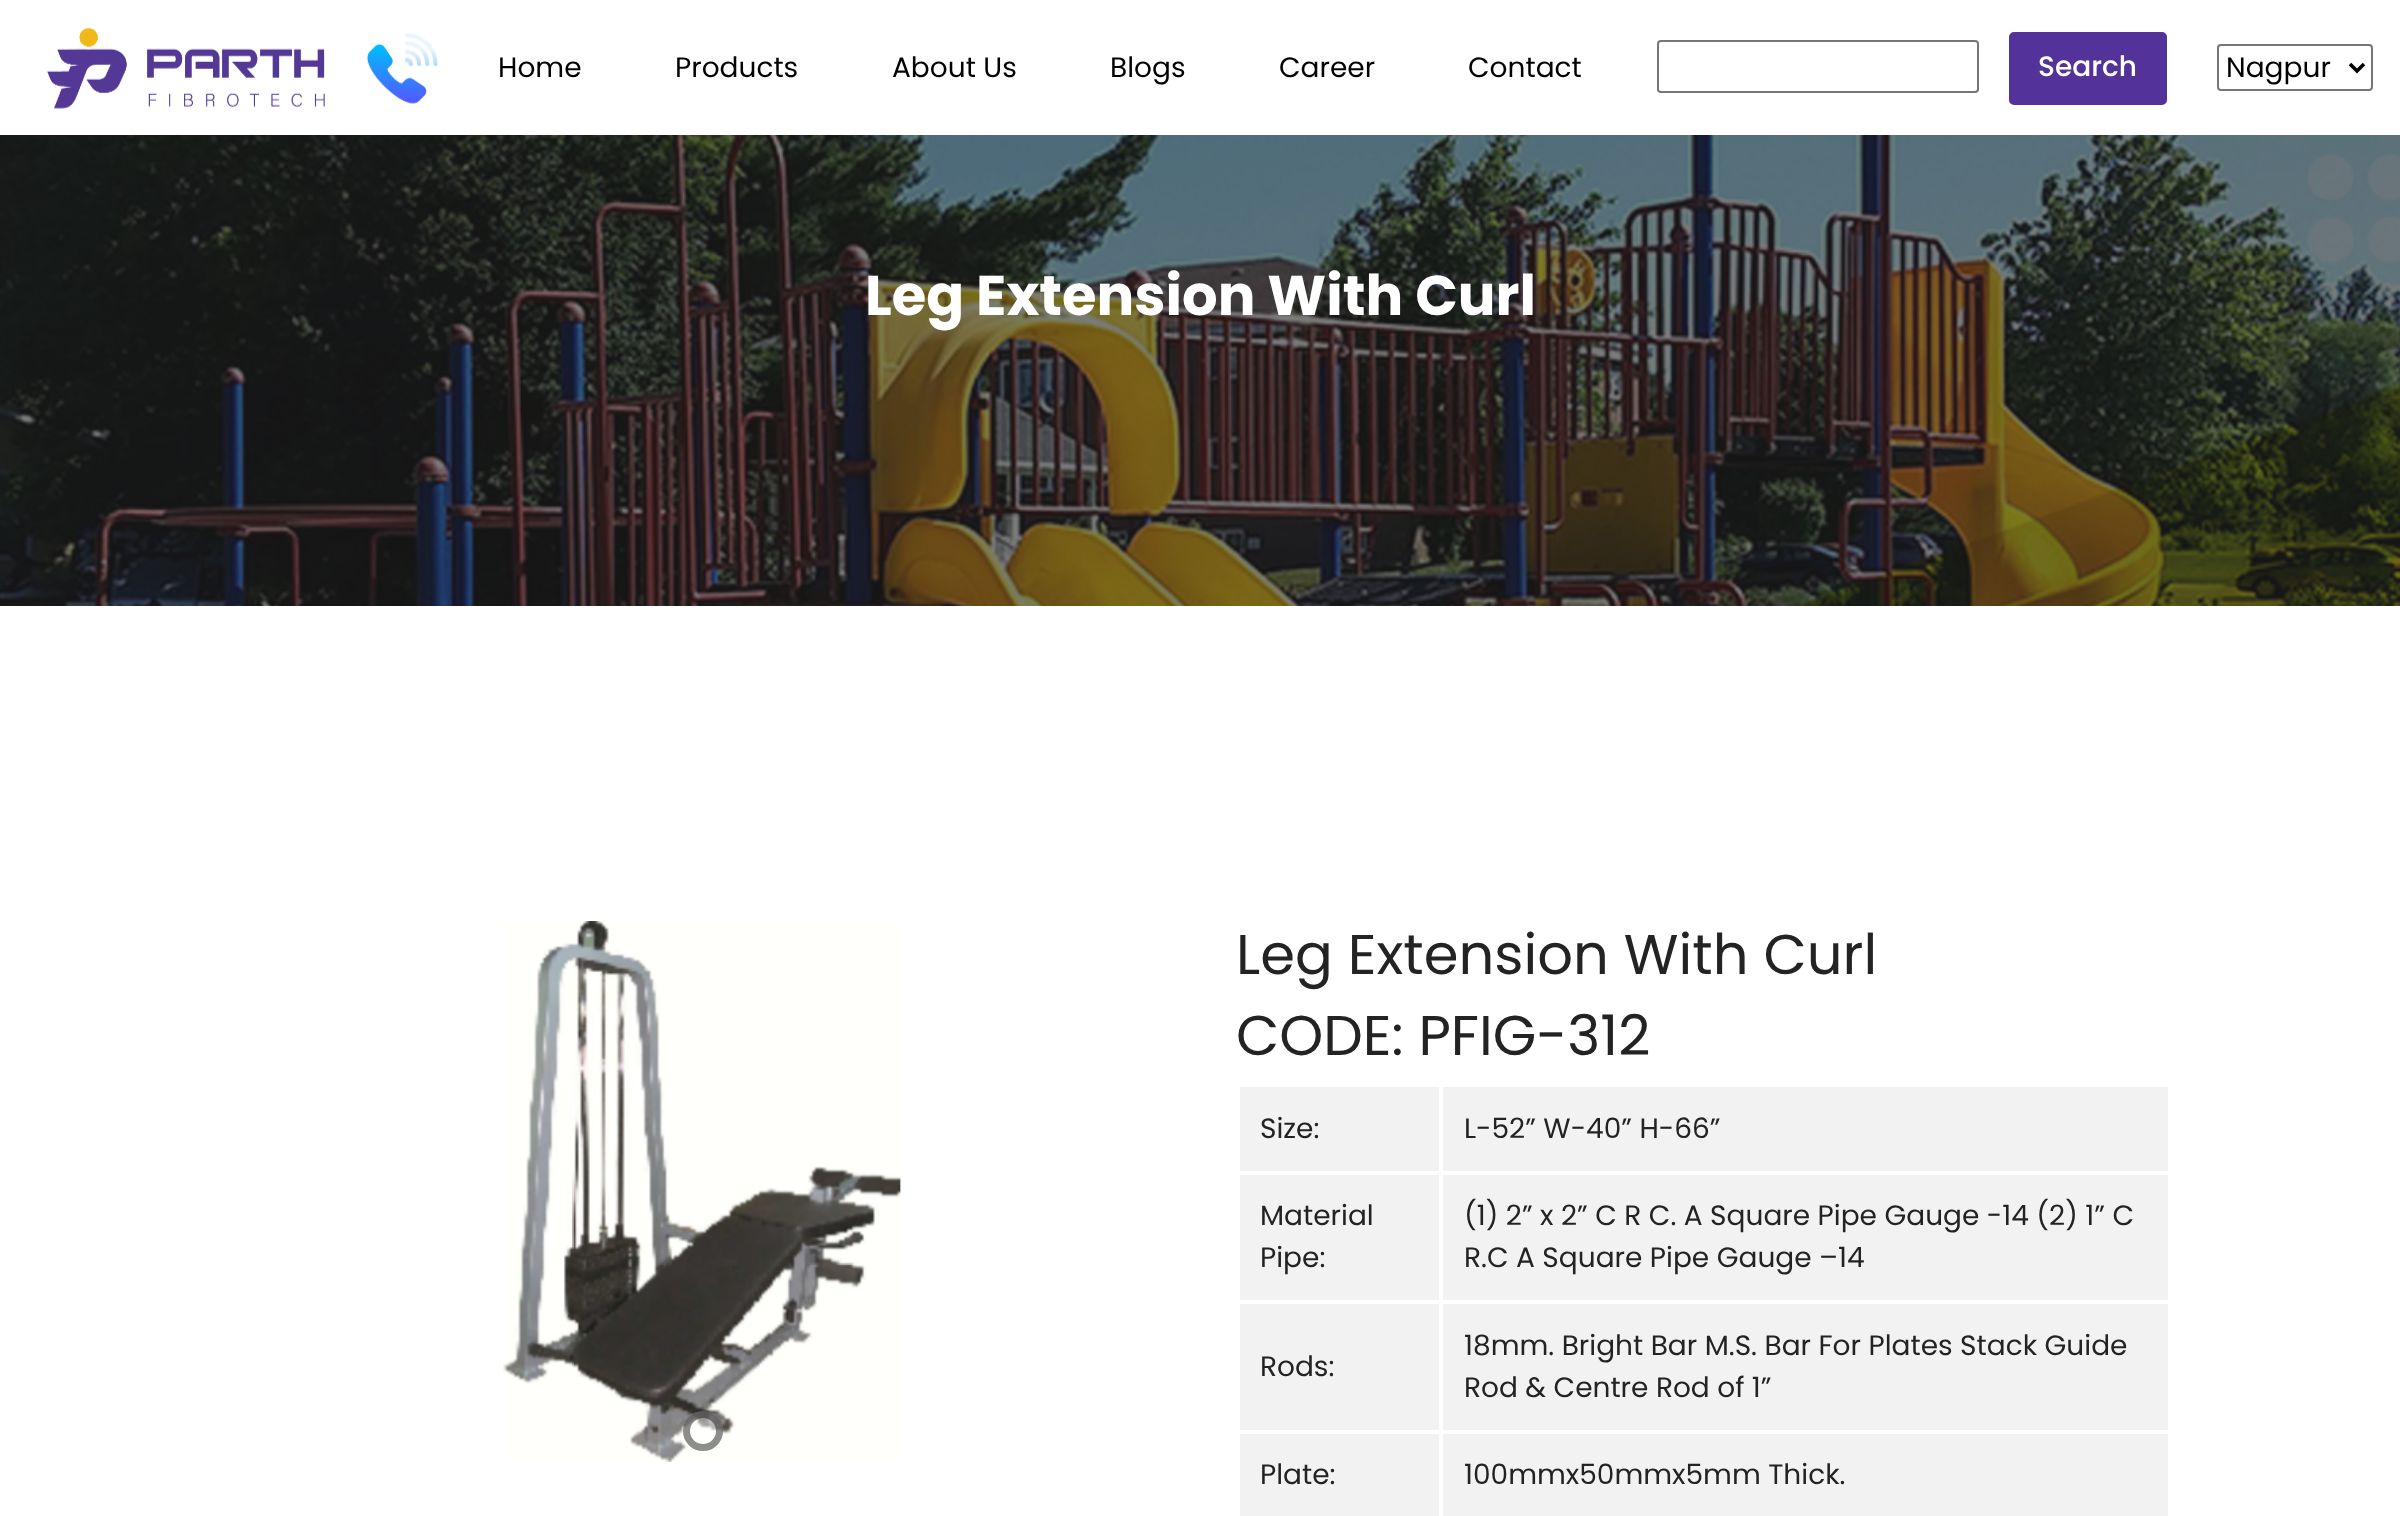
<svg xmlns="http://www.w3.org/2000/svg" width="2400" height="1516">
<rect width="100%" height="100%" fill="#fff"/>
<image x="47" y="27" width="278" height="82" href="media/1.png"/>
<image x="367" y="33" width="71" height="71" href="media/2.png"/>
<text x="498" y="77" style="font-family:Poppins;font-size:28px;fill:#000">Home</text>
<text x="675" y="77" style="font-family:Poppins;font-size:28px;fill:#000">Products</text>
<text x="892" y="77" style="font-family:Poppins;font-size:28px;fill:#000">About Us</text>
<text x="1110" y="77" style="font-family:Poppins;font-size:28px;fill:#000">Blogs</text>
<text x="1279" y="77" style="font-family:Poppins;font-size:28px;fill:#000">Career</text>
<text x="1468" y="77" style="font-family:Poppins;font-size:28px;fill:#000">Contact</text>
<rect x="1658" y="41" width="320" height="51" rx="3" fill="none" stroke="#767676" stroke-width="2"/>
<rect x="2010" y="33" width="156" height="71" rx="4" fill="#533299" stroke="#533299" stroke-width="2"/>
<text x="2038" y="76" style="font-family:Poppins;font-size:28px;font-weight:500;fill:#fff">Search</text>
<rect x="2218" y="45" width="154" height="45" rx="3" fill="none" stroke="#767676" stroke-width="2"/>
<path d="M2350 64l7 7l7-7" fill="none" stroke="#000" stroke-width="3.5"/>
<text x="2226" y="77" style="font-family:Poppins;font-size:28px;fill:#000">Nagpur</text>
<image x="0" y="135" width="2400" height="471" href="media/3.png"/>
<text x="865" y="315" style="font-family:Poppins;font-size:56px;font-weight:bold;fill:#fff">Leg Extension With Curl</text>
<image x="503" y="921" width="399" height="541" href="media/4.png"/>
<circle cx="703" cy="1431" r="20" fill="#ffffff80"/>
<circle cx="703" cy="1431" r="16.5" fill="none" stroke="#1b1b1b80" stroke-width="7"/>
<text x="1236" y="974" style="font-family:Poppins;font-size:56px;fill:#232323">Leg Extension With Curl</text>
<text x="1236" y="1055" style="font-family:Poppins;font-size:56px;fill:#232323">CODE: PFIG-312</text>
<rect x="1240" y="1087" width="928" height="429" fill="#f2f2f2"/>
<text x="1260" y="1138" style="font-family:Poppins;font-size:28px;fill:#232323">Size:</text>
<text x="1464" y="1138" style="font-family:Poppins;font-size:28px;fill:#232323">L-52” W-40” H-66”</text>
<rect x="1236" y="1171" width="936" height="4" fill="#fff"/>
<text x="1260" y="1225" style="font-family:Poppins;font-size:28px;fill:#232323">Material</text>
<text x="1260" y="1267" style="font-family:Poppins;font-size:28px;fill:#232323">Pipe:</text>
<text x="1464" y="1225" style="font-family:Poppins;font-size:28px;fill:#232323">(1) 2” x 2” C R C. A Square Pipe Gauge -14 (2) 1” C</text>
<text x="1464" y="1267" style="font-family:Poppins;font-size:28px;fill:#232323">R.C A Square Pipe Gauge –14</text>
<rect x="1236" y="1300" width="936" height="4" fill="#fff"/>
<text x="1260" y="1376" style="font-family:Poppins;font-size:28px;fill:#232323">Rods:</text>
<text x="1464" y="1355" style="font-family:Poppins;font-size:28px;fill:#232323">18mm. Bright Bar M.S. Bar For Plates Stack Guide</text>
<text x="1464" y="1397" style="font-family:Poppins;font-size:28px;fill:#232323">Rod &amp; Centre Rod of 1”</text>
<rect x="1236" y="1430" width="936" height="4" fill="#fff"/>
<text x="1260" y="1484" style="font-family:Poppins;font-size:28px;fill:#232323">Plate:</text>
<rect x="1439" y="1083" width="4" height="433" fill="#fff"/>
<text x="1464" y="1484" style="font-family:Poppins;font-size:28px;fill:#232323">100mmx50mmx5mm Thick.</text>
</svg>
